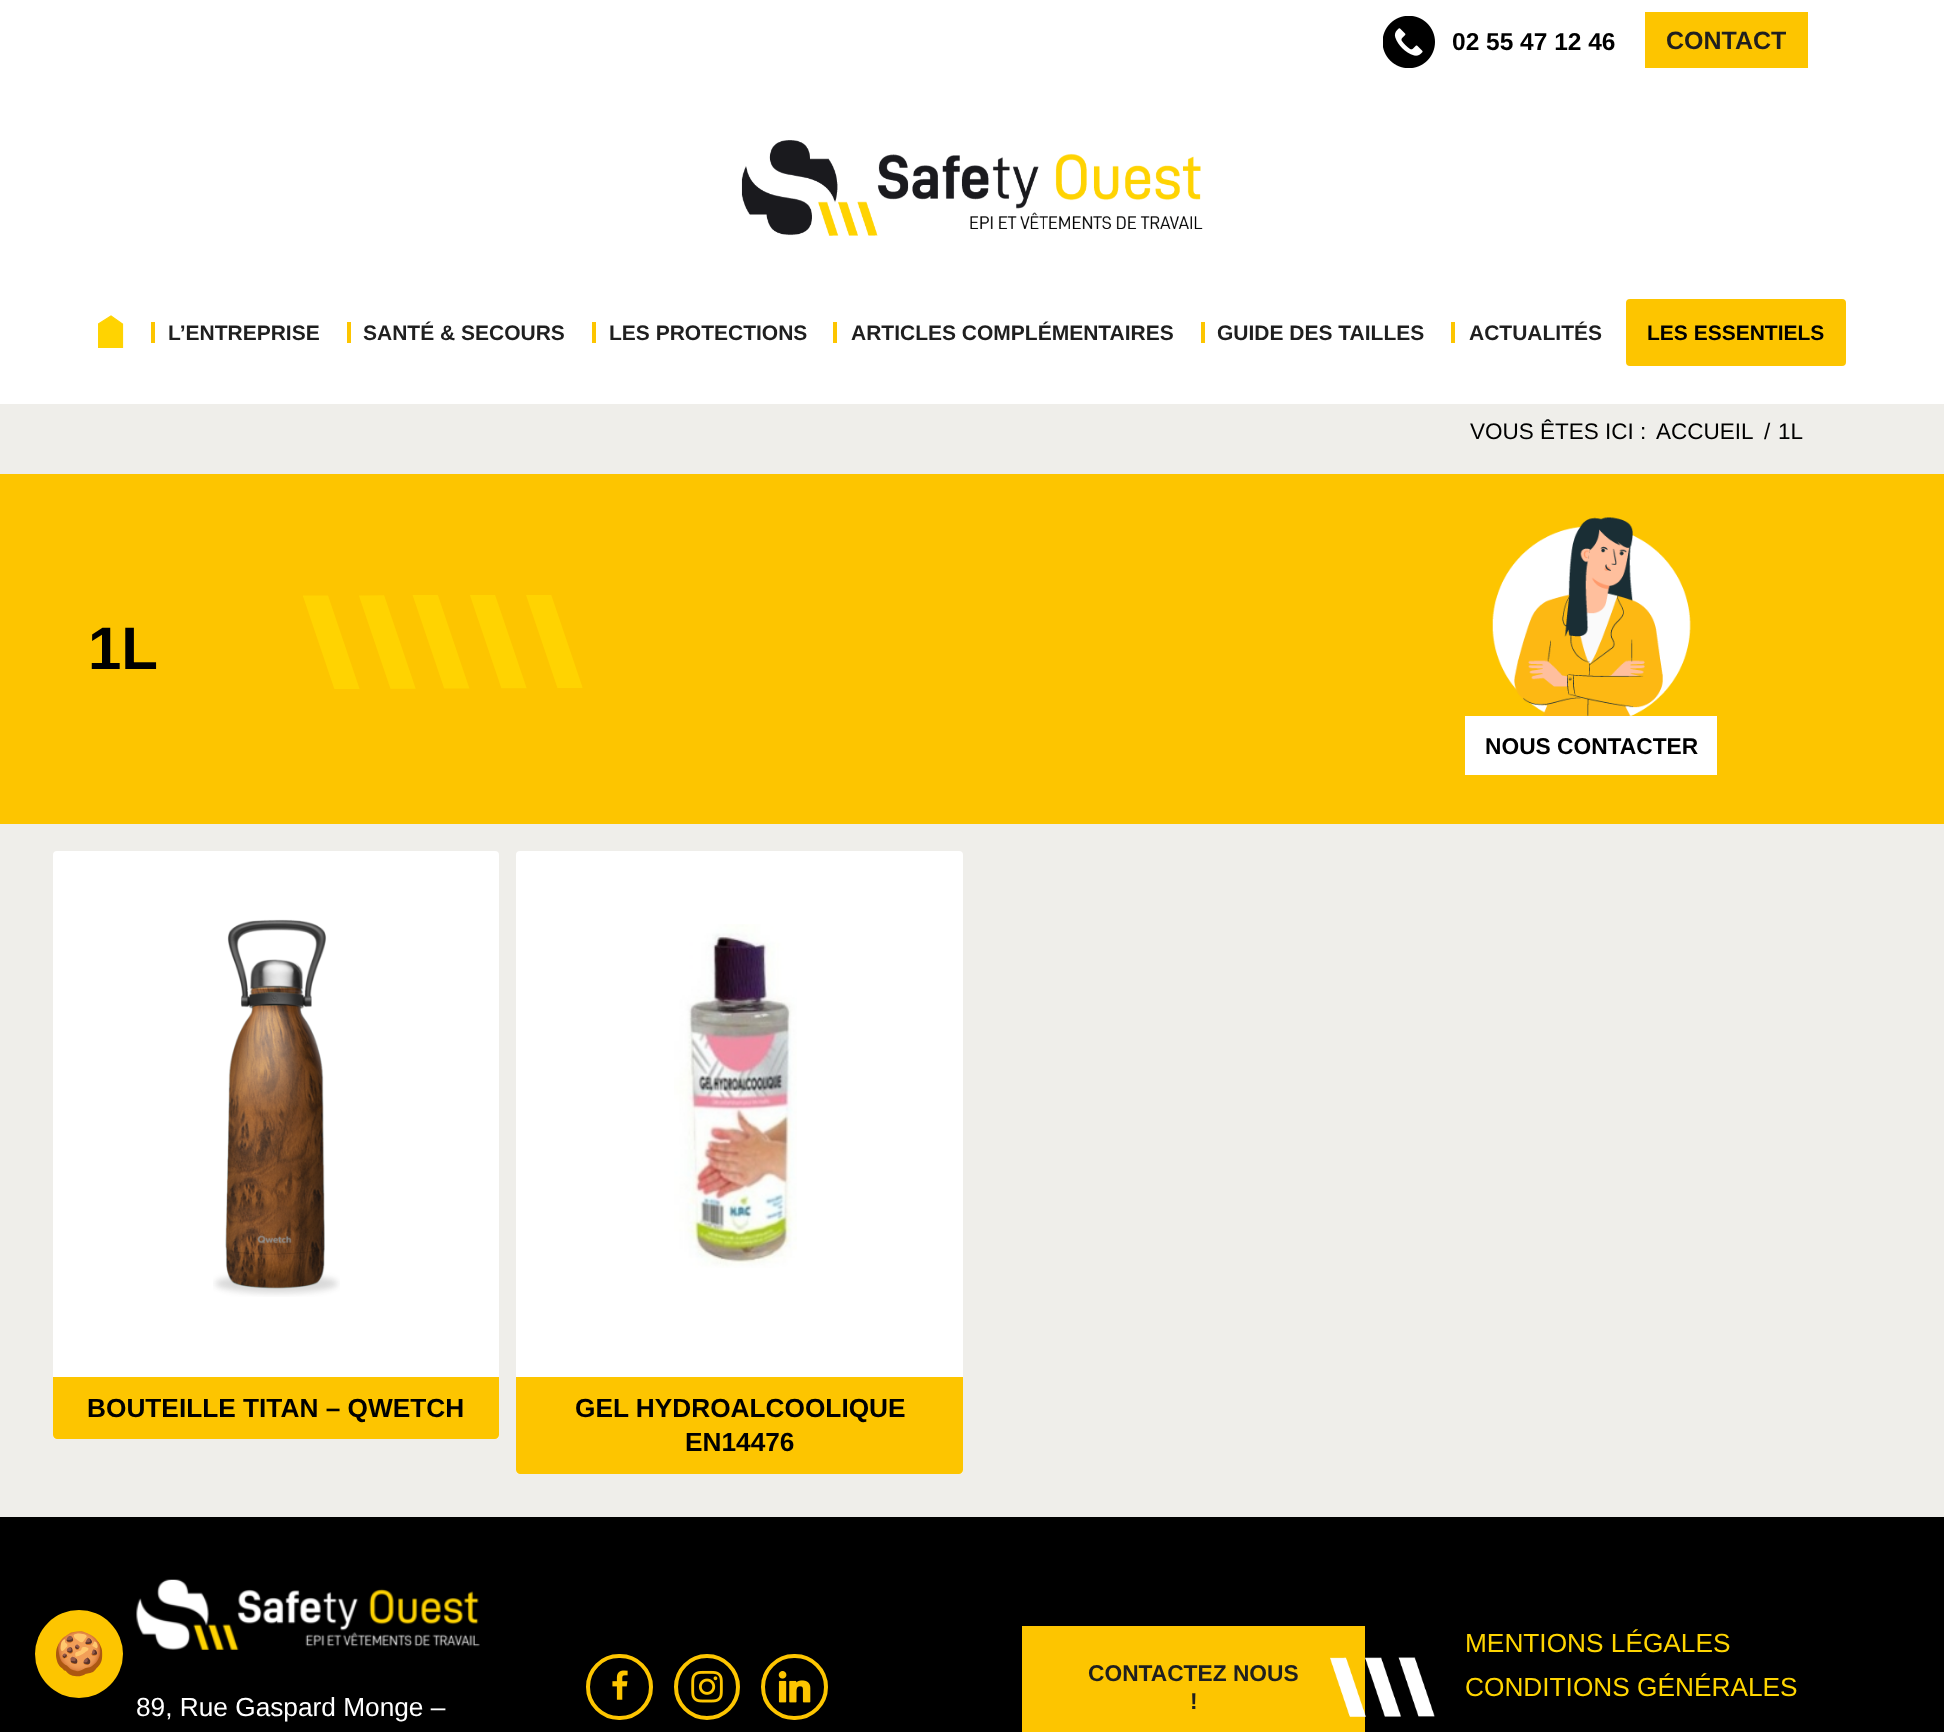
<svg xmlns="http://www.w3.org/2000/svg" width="1944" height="1732">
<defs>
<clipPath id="clip1"><rect x="98" y="315" width="26" height="33"/></clipPath>
</defs>
<rect width="100%" height="100%" fill="#efeeea"/>
<rect y="1517" width="1944" height="215" fill="#000"/>
<circle cx="79" cy="1654" r="44" fill="#fdc500"/>
<text x="53" y="1668" style="font-family:Noto Color Emoji;font-size:42px;fill:#fff">🍪</text>
<rect width="1944" height="404" fill="#fff"/>
<image x="1383" y="16" width="52" height="52" href="media/1.png"/>
<text x="1452" y="50" style="font-family:Liberation Sans;font-size:24.5px;font-weight:bold;fill:#000">02 55 47 12 46</text>
<rect x="1645" y="12" width="163" height="56" fill="#fdc500"/>
<text x="1666" y="49" style="font-family:Liberation Sans;font-size:25px;font-weight:bold;fill:#1f1f1f">CONTACT</text>
<image x="741" y="140" width="462" height="96" href="media/2.png"/>
<path d="M122.5 348h-24v-24l12.5-8l11.5 8z" fill="#ffd301"/>
<g clip-path="url(#clip1)">
<path d="M122.5 348h-24v-24l12.5-8l11.5 8z" fill="none" stroke="#ffd304" stroke-width="1.2"/>
</g>
<rect x="151" y="322" width="4" height="21" fill="#fdc500"/>
<text x="168" y="340" style="font-family:Liberation Sans;font-size:21px;font-weight:bold;fill:#1f1f1f">L’ENTREPRISE</text>
<rect x="347" y="322" width="4" height="21" fill="#fdc500"/>
<text x="363" y="340" style="font-family:Liberation Sans;font-size:21px;font-weight:bold;fill:#1f1f1f">SANTÉ &amp; SECOURS</text>
<rect x="592" y="322" width="4" height="21" fill="#fdc500"/>
<text x="609" y="340" style="font-family:Liberation Sans;font-size:21px;font-weight:bold;fill:#1f1f1f">LES PROTECTIONS</text>
<rect x="833" y="322" width="4" height="21" fill="#fdc500"/>
<text x="851" y="340" style="font-family:Liberation Sans;font-size:21px;font-weight:bold;fill:#1f1f1f">ARTICLES COMPLÉMENTAIRES</text>
<rect x="1201" y="322" width="4" height="21" fill="#fdc500"/>
<text x="1217" y="340" style="font-family:Liberation Sans;font-size:21px;font-weight:bold;fill:#1f1f1f">GUIDE DES TAILLES</text>
<rect x="1451" y="322" width="4" height="21" fill="#fdc500"/>
<text x="1469" y="340" style="font-family:Liberation Sans;font-size:21px;font-weight:bold;fill:#1f1f1f">ACTUALITÉS</text>
<rect x="1628" y="301" width="216" height="63" rx="2" fill="#fdc500" stroke="#fdc500" stroke-width="4"/>
<text x="1647" y="340" style="font-family:Liberation Sans;font-size:21px;font-weight:bold;fill:#000">LES ESSENTIELS</text>
<text x="1470" y="439" style="font-family:Liberation Sans;font-size:22.5px;fill:#000">VOUS ÊTES ICI :</text>
<text x="1656" y="439" style="font-family:Liberation Sans;font-size:22.5px;fill:#000">ACCUEIL</text>
<text x="1764" y="439" style="font-family:Liberation Sans;font-size:22.5px;fill:#000">/</text>
<text x="1778" y="439" style="font-family:Liberation Sans;font-size:22.5px;fill:#000">1L</text>
<rect y="474" width="1944" height="350" fill="#fdc500"/>
<text x="88" y="669" style="font-family:Liberation Sans;font-size:60px;font-weight:bold;fill:#000">1L</text>
<image x="303" y="595" width="280" height="94" href="media/3.png"/>
<image x="1492" y="517" width="199" height="199" href="media/4.png"/>
<rect x="1465" y="716" width="252" height="59" fill="#fff"/>
<text x="1485" y="754" style="font-family:Liberation Sans;font-size:22.75px;font-weight:bold;fill:#000">NOUS CONTACTER</text>
<rect x="53" y="851" width="446" height="588" rx="4" fill="#fff"/>
<image x="213" y="919" width="127" height="378" href="media/5.png"/>
<path d="M53 1376h446v59c0 2-2 4-4 4h-438c-2 0-4-2-4-4z" fill="#fff"/>
<path d="M53 1377h446v58c0 2-2 4-4 4h-438c-2 0-4-2-4-4z" fill="#fdc500"/>
<text x="87" y="1417" style="font-family:Liberation Sans;font-size:26.25px;font-weight:bold;fill:#000">BOUTEILLE TITAN – QWETCH</text>
<rect x="516" y="851" width="447" height="623" rx="4" fill="#fff"/>
<image x="674" y="924" width="123" height="344" href="media/6.png"/>
<path d="M516 1376h447v94c0 2-2 4-4 4h-439c-2 0-4-2-4-4z" fill="#fff"/>
<path d="M516 1377h447v93c0 2-2 4-4 4h-439c-2 0-4-2-4-4z" fill="#fdc500"/>
<text x="575" y="1417" style="font-family:Liberation Sans;font-size:26.25px;font-weight:bold;fill:#000">GEL HYDROALCOOLIQUE</text>
<text x="685" y="1451" style="font-family:Liberation Sans;font-size:26.25px;font-weight:bold;fill:#000">EN14476</text>
<image x="136" y="1579" width="344" height="71" href="media/7.png"/>
<text x="136" y="1716" style="font-family:Liberation Sans;font-size:26.25px;fill:#fff">89, Rue Gaspard Monge –</text>
<rect x="588" y="1656" width="63" height="62" rx="31" fill="none" stroke="#fdc500" stroke-width="4"/>
<image x="612" y="1670" width="16" height="30" href="media/8.png"/>
<circle cx="707" cy="1687" r="31" fill="none" stroke="#fdc500" stroke-width="4"/>
<image x="691" y="1670" width="32" height="33" href="media/9.png"/>
<rect x="763" y="1656" width="63" height="62" rx="31" fill="none" stroke="#fdc500" stroke-width="4"/>
<image x="778" y="1671" width="33" height="32" href="media/10.png"/>
<rect x="1022" y="1626" width="343" height="106" fill="#fdc500"/>
<text x="1088" y="1681" style="font-family:Liberation Sans;font-size:22.75px;font-weight:bold;fill:#1f1f1f">CONTACTEZ NOUS</text>
<image x="1330" y="1657" width="105" height="60" href="media/11.png"/>
<text x="1190" y="1709" style="font-family:Liberation Sans;font-size:22.75px;font-weight:bold;fill:#1f1f1f">!</text>
<text x="1465" y="1652" style="font-family:Liberation Sans;font-size:26.25px;fill:#ffd501">MENTIONS LÉGALES</text>
<text x="1465" y="1696" style="font-family:Liberation Sans;font-size:26.25px;fill:#ffd501">CONDITIONS GÉNÉRALES</text>
</svg>
